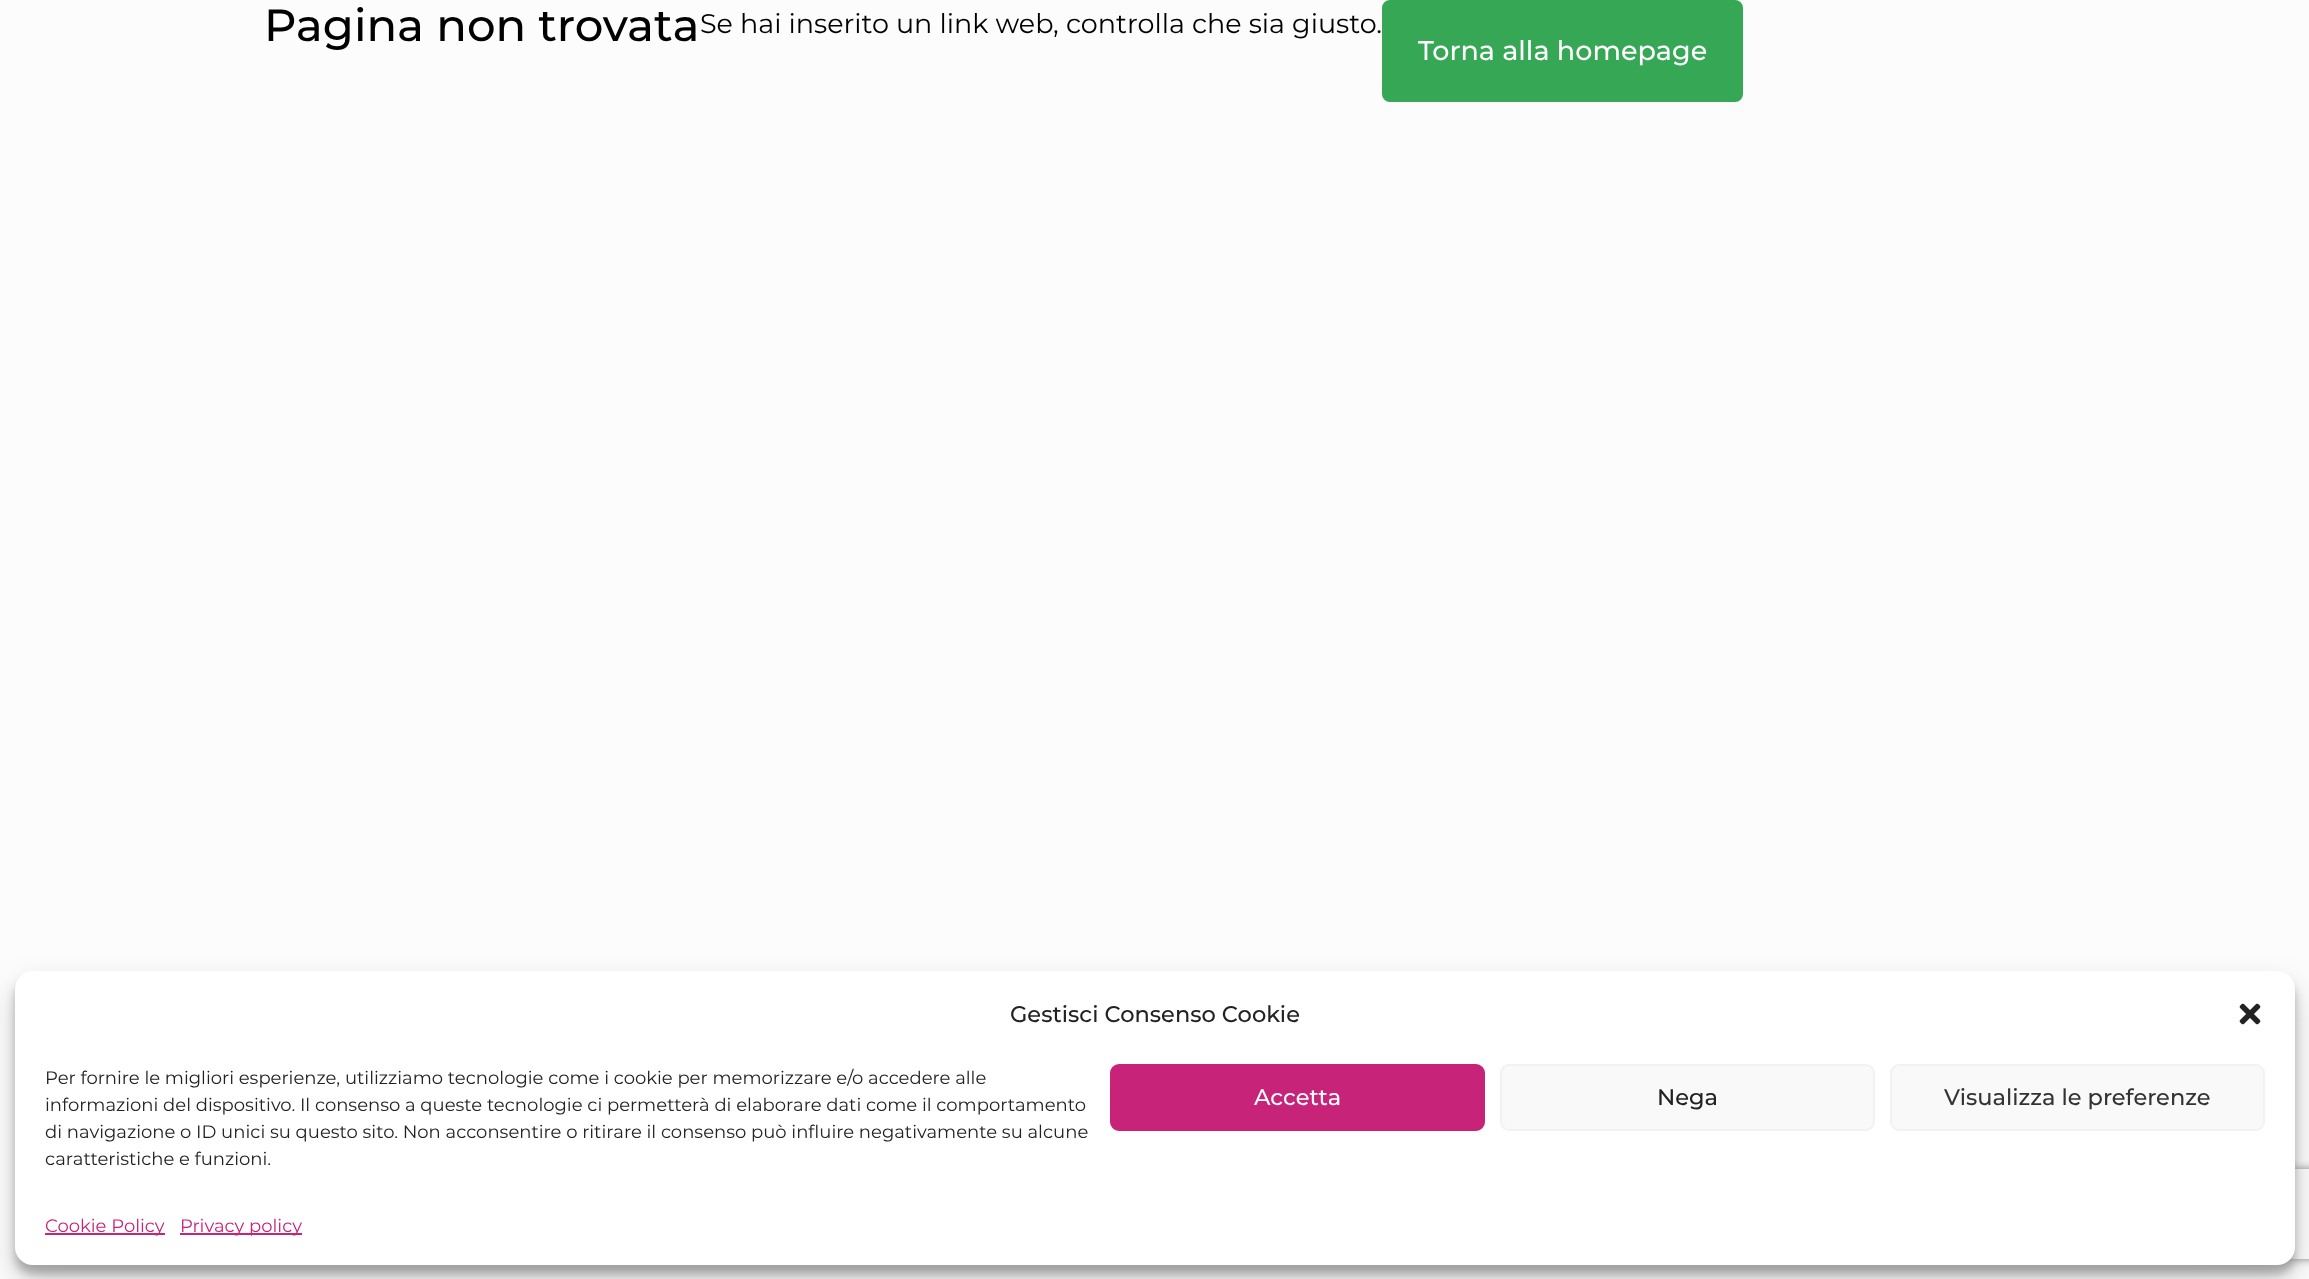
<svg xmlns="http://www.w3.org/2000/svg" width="2309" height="1279">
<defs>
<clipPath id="clip1"><path d="M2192 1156h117v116h-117zm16 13h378c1.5 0 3 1.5 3 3v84c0 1.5-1.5 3-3 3h-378c-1.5 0-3-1.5-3-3v-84c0-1.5 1.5-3 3-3z" clip-rule="evenodd"/></clipPath>
</defs>
<rect width="100%" height="100%" fill="#fcfcfc"/>
<text x="264" y="41" style="font-family:Montserrat;font-size:45px;font-weight:500;fill:#000">Pagina non trovata</text>
<text x="700" y="33" style="font-family:Montserrat;font-size:27px;fill:#000">Se hai inserito un link web, controlla che sia giusto.</text>
<rect x="1383.5" y="1.5" width="358" height="99" rx="6.5" fill="#36a755" stroke="#36a755" stroke-width="3"/>
<text x="1418" y="60" style="font-family:Montserrat;font-size:27px;font-weight:500;fill:#fff">Torna alla homepage</text>
<rect x="15" y="980" width="2280" height="294" rx="18" fill="#0000003b" filter="blur(4.5px)"/>
<rect x="15" y="986" width="2280" height="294" rx="18" fill="#00000030" filter="blur(15px)"/>
<g clip-path="url(#clip1)">
<rect x="2205" y="1169" width="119" height="90" rx="3" fill="#808080" filter="blur(4px)"/>
</g>
<rect x="15" y="971" width="2280" height="294" rx="18" fill="#fff"/>
<text x="1010" y="1022" style="font-family:Montserrat;font-size:22.5px;font-weight:500;fill:#222">Gestisci Consenso Cookie</text>
<image x="2239" y="1003" width="22" height="22" href="media/1.png"/>
<text x="45" y="1084" style="font-family:Montserrat;font-size:18px;fill:#222">Per fornire le migliori esperienze, utilizziamo tecnologie come i cookie per memorizzare e/o accedere alle</text>
<text x="45" y="1111" style="font-family:Montserrat;font-size:18px;fill:#222">informazioni del dispositivo. Il consenso a queste tecnologie ci permetterà di elaborare dati come il comportamento</text>
<text x="45" y="1138" style="font-family:Montserrat;font-size:18px;fill:#222">di navigazione o ID unici su questo sito. Non acconsentire o ritirare il consenso può influire negativamente su alcune</text>
<text x="45" y="1165" style="font-family:Montserrat;font-size:18px;fill:#222">caratteristiche e funzioni.</text>
<rect x="1111" y="1065" width="373" height="65" rx="8" fill="#c72479" stroke="#c72479" stroke-width="2"/>
<text x="1254" y="1105" style="font-family:Montserrat;font-size:22.5px;font-weight:500;fill:#fff">Accetta</text>
<rect x="1501" y="1065" width="373" height="65" rx="8" fill="#f9f9f9" stroke="#f2f2f2" stroke-width="2"/>
<text x="1657" y="1105" style="font-family:Montserrat;font-size:22.5px;font-weight:500;fill:#222">Nega</text>
<rect x="1891" y="1065" width="373" height="65" rx="8" fill="#f9f9f9" stroke="#f2f2f2" stroke-width="2"/>
<text x="1944" y="1105" style="font-family:Montserrat;font-size:22.5px;font-weight:500;fill:#333">Visualizza le preferenze</text>
<rect x="45" y="1233" width="120" height="2" fill="#c72479"/>
<text x="45" y="1232" style="font-family:Montserrat;font-size:18px;fill:#c72479">Cookie Policy</text>
<rect x="180" y="1233" width="122" height="2" fill="#c72479"/>
<text x="180" y="1232" style="font-family:Montserrat;font-size:18px;fill:#c72479">Privacy policy</text>
</svg>
